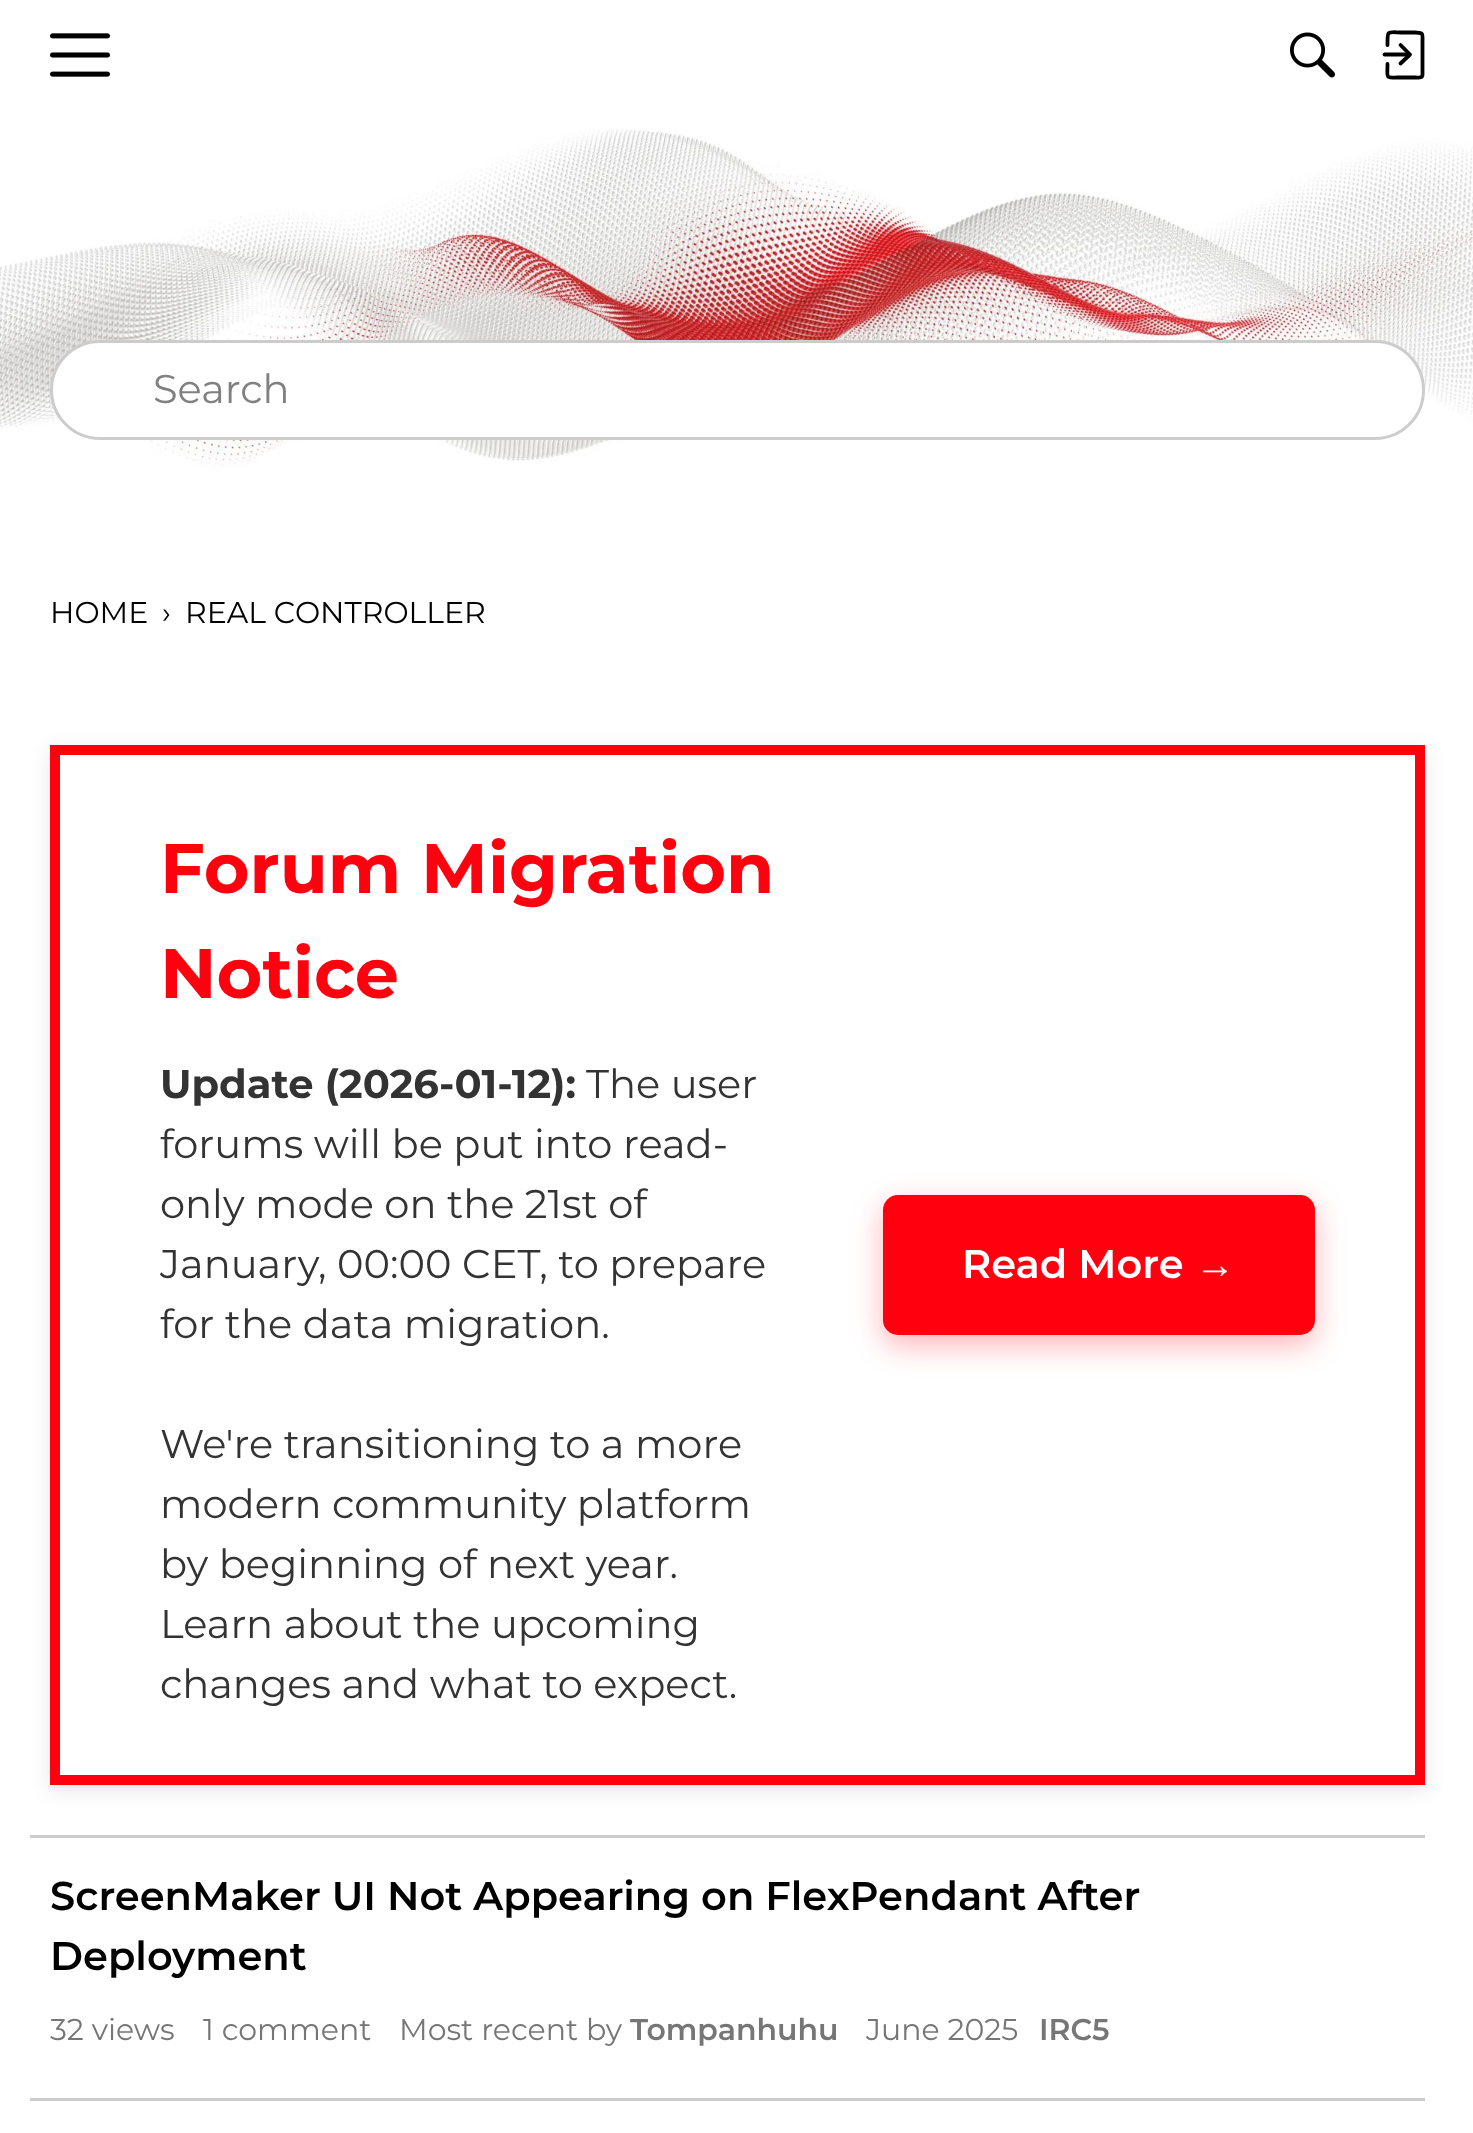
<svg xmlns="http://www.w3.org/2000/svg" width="1473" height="2133">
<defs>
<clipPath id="clip1"><path d="M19 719h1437v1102h-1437zm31 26h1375v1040h-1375z" clip-rule="evenodd"/></clipPath>
</defs>
<rect width="100%" height="100%" fill="#fff"/>
<image x="50" y="33" width="60" height="44" href="media/1.png"/>
<image x="1290" y="32" width="45" height="46" href="media/2.png"/>
<path d="M1400.5 63.5l9.5-9l-9.5-9.5" fill="none" stroke="#000" stroke-width="3.8" stroke-linecap="round" stroke-linejoin="round"/>
<path d="M1409 54.5h-24.5" fill="none" stroke="#000" stroke-width="3.8" stroke-linecap="round"/>
<path d="M1387.5 45c0-16-1-12.5 17.5-12.5h9.5c9.5 0 8 1 8 10.5v31.5c0 4-4 3-7 3h-15c-16 0-13 1.5-13-13.5" fill="none" stroke="#000" stroke-width="3.8" stroke-linecap="round" stroke-linejoin="round"/>
<image x="0" y="110" width="1473" height="370" href="media/3.png"/>
<rect x="51.5" y="341.5" width="1372" height="97" rx="48.5" fill="#fff" stroke="#ccc" stroke-width="3"/>
<text x="153" y="403" style="font-family:Montserrat;font-size:40px;fill:#808080">Search</text>
<text x="50" y="623" style="font-family:Montserrat;font-size:30px;fill:#000">HOME</text>
<text x="162" y="623" style="font-family:Montserrat;font-size:30px;fill:#000">›</text>
<text x="185" y="623" style="font-family:Montserrat;font-size:30px;fill:#000">REAL CONTROLLER</text>
<g clip-path="url(#clip1)">
<rect x="50" y="750" width="1375" height="1040" fill="#0000001a" filter="blur(10px)"/>
</g>
<rect x="55" y="750" width="1365" height="1030" fill="none" stroke="#ff000f" stroke-width="10"/>
<text x="160" y="893" style="font-family:Montserrat;font-size:70px;font-weight:bold;fill:#ff000f">Forum Migration</text>
<text x="160" y="998" style="font-family:Montserrat;font-size:70px;font-weight:bold;fill:#ff000f">Notice</text>
<text x="160" y="1098" style="font-family:Montserrat;font-size:40px;font-weight:bold;fill:#333">Update (2026-01-12):</text>
<text x="586" y="1098" style="font-family:Montserrat;font-size:40px;fill:#333">The user</text>
<text x="160" y="1158" style="font-family:Montserrat;font-size:40px;fill:#333">forums will be put into read-</text>
<text x="160" y="1218" style="font-family:Montserrat;font-size:40px;fill:#333">only mode on the 21st of</text>
<text x="160" y="1278" style="font-family:Montserrat;font-size:40px;fill:#333">January, 00:00 CET, to prepare</text>
<text x="160" y="1338" style="font-family:Montserrat;font-size:40px;fill:#333">for the data migration.</text>
<text x="160" y="1458" style="font-family:Montserrat;font-size:40px;fill:#333">We're transitioning to a more</text>
<text x="160" y="1518" style="font-family:Montserrat;font-size:40px;fill:#333">modern community platform</text>
<text x="160" y="1578" style="font-family:Montserrat;font-size:40px;fill:#333">by beginning of next year.</text>
<text x="160" y="1638" style="font-family:Montserrat;font-size:40px;fill:#333">Learn about the upcoming</text>
<text x="160" y="1698" style="font-family:Montserrat;font-size:40px;fill:#333">changes and what to expect.</text>
<rect x="883" y="1205" width="432" height="140" rx="15" fill="#ff000f4d" filter="blur(15px)"/>
<rect x="883" y="1195" width="432" height="140" rx="15" fill="#ff000f"/>
<text x="962" y="1278" style="font-family:Montserrat;font-size:40px;font-weight:600;fill:#fff">Read More</text>
<text x="1195" y="1278" style="font-family:Liberation Sans;font-size:40px;font-weight:bold;fill:#fff">→</text>
<rect x="30" y="1835" width="1395" height="3" fill="#ccc"/>
<text x="50" y="1910" style="font-family:Montserrat;font-size:40px;font-weight:600;fill:#000">ScreenMaker UI Not Appearing on FlexPendant After</text>
<text x="50" y="1970" style="font-family:Montserrat;font-size:40px;font-weight:600;fill:#000">Deployment</text>
<text x="50" y="2040" style="font-family:Montserrat;font-size:30px;fill:#767676">32 views</text>
<text x="203" y="2040" style="font-family:Montserrat;font-size:30px;fill:#767676">1 comment</text>
<text x="399" y="2040" style="font-family:Montserrat;font-size:30px;fill:#767676">Most recent by</text>
<text x="630" y="2040" style="font-family:Montserrat;font-size:30px;font-weight:600;fill:#767676">Tompanhuhu</text>
<text x="866" y="2040" style="font-family:Montserrat;font-size:30px;fill:#767676">June 2025</text>
<text x="1039" y="2040" style="font-family:Montserrat;font-size:30px;font-weight:600;fill:#767676">IRC5</text>
<rect x="30" y="2098" width="1395" height="3" fill="#ccc"/>
</svg>
